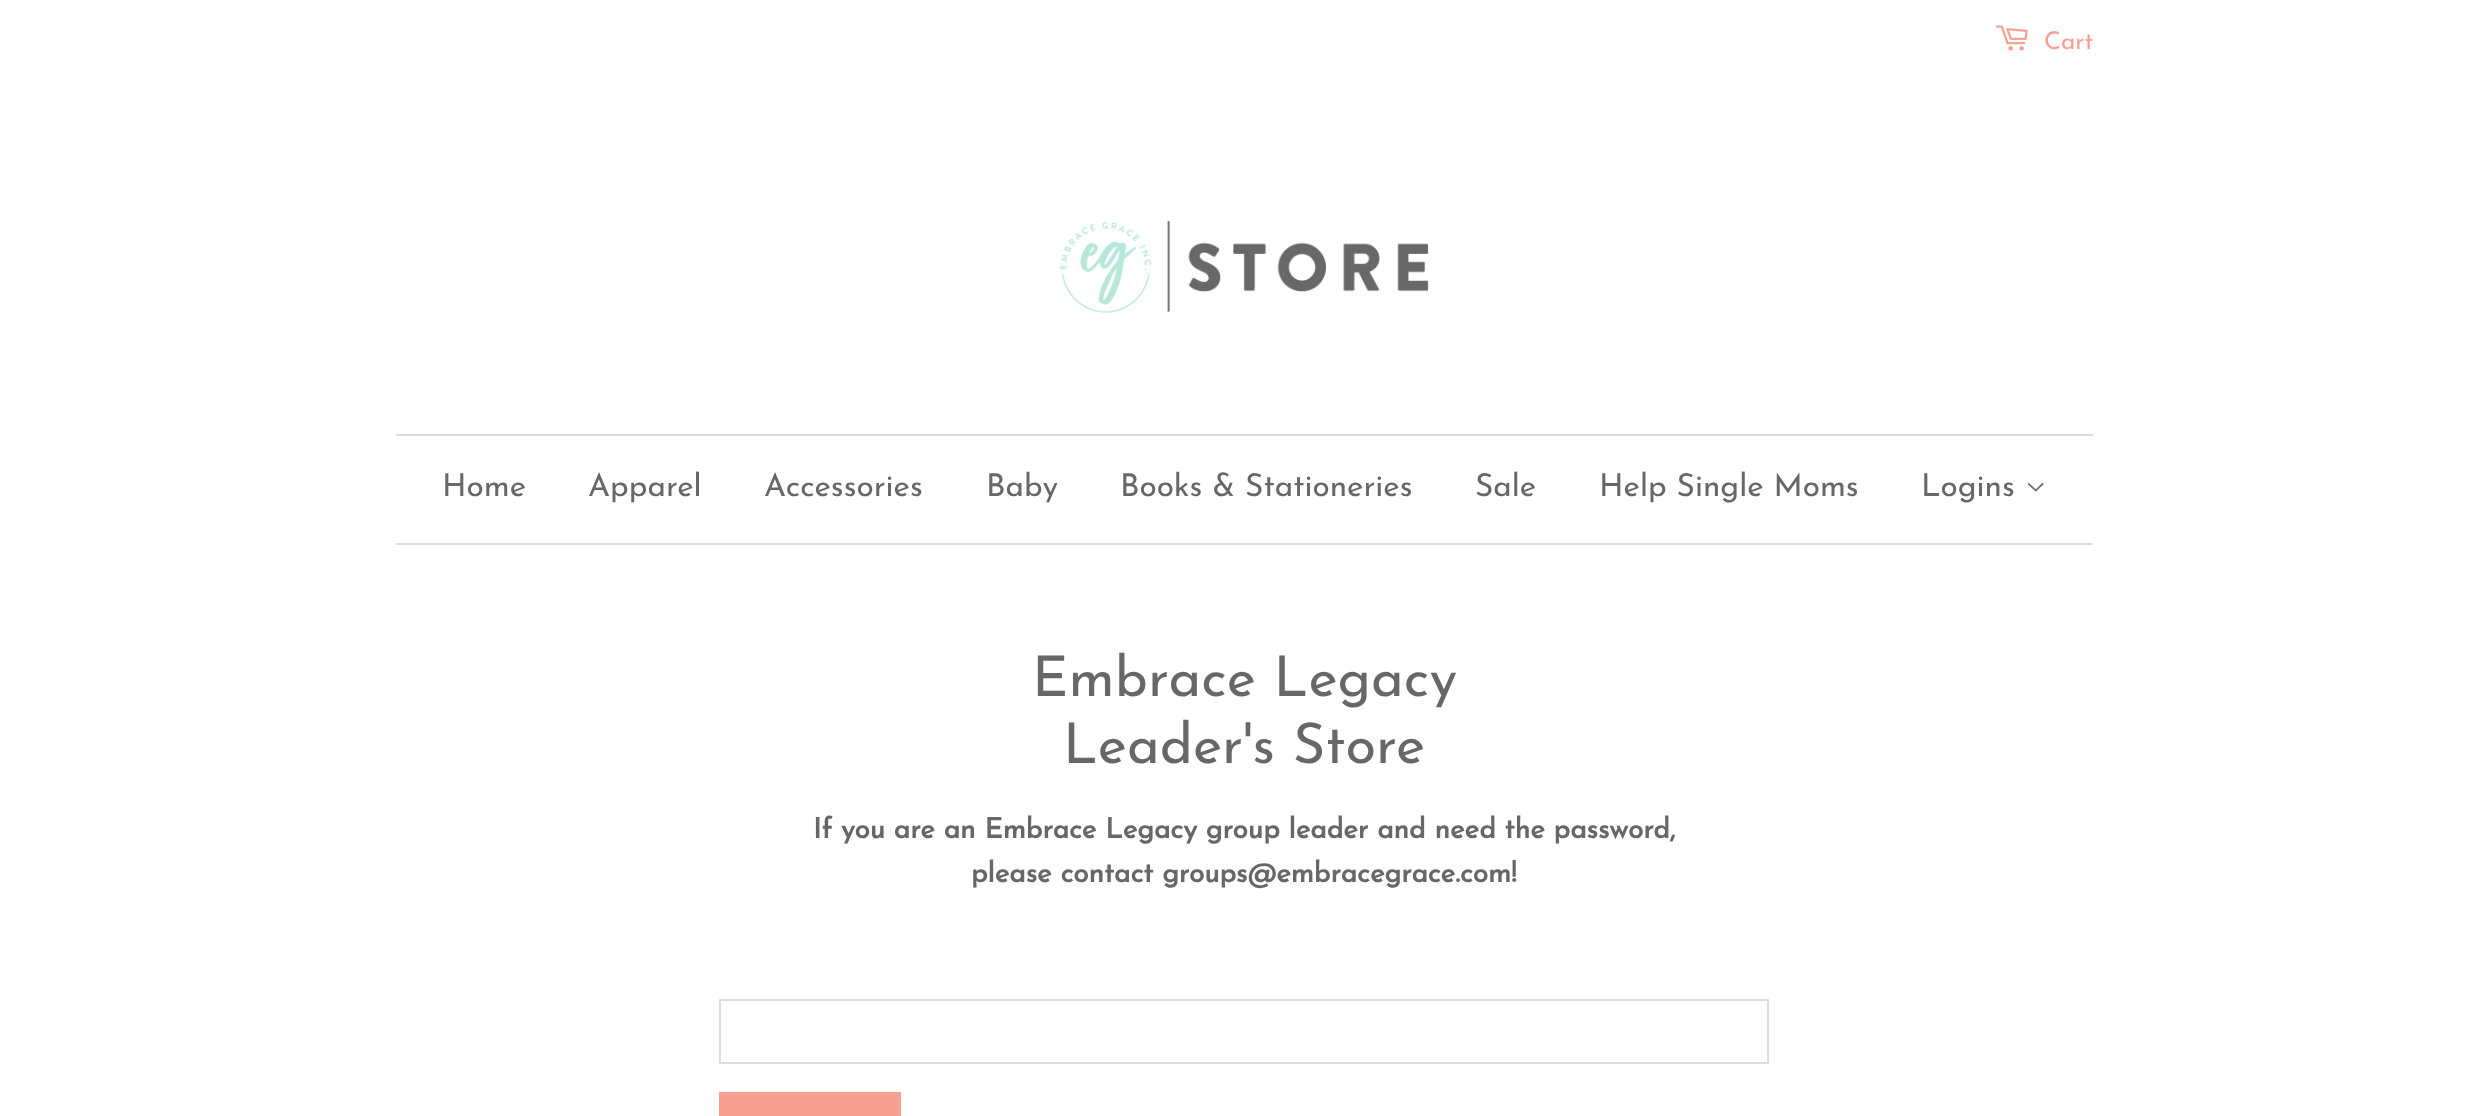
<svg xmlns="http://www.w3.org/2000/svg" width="2487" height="1116">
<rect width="100%" height="100%" fill="#fff"/>
<image x="1995" y="25" width="33" height="26" href="media/1.png"/>
<text x="2044" y="49" style="font-family:Josefin Sans;font-size:24.5px;font-weight:100;fill:#f7a093">Cart</text>
<image x="1059" y="221" width="370" height="92" href="media/2.png"/>
<rect x="396" y="434" width="1697" height="2" fill="#ddd"/>
<rect x="396" y="543" width="1697" height="2" fill="#ddd"/>
<text x="442" y="496" style="font-family:Josefin Sans;font-size:31.5px;font-weight:100;fill:#676767">Home</text>
<text x="588" y="496" style="font-family:Josefin Sans;font-size:31.5px;font-weight:100;fill:#676767">Apparel</text>
<text x="764" y="496" style="font-family:Josefin Sans;font-size:31.5px;font-weight:100;fill:#676767">Accessories</text>
<text x="986" y="496" style="font-family:Josefin Sans;font-size:31.5px;font-weight:100;fill:#676767">Baby</text>
<text x="1120" y="496" style="font-family:Josefin Sans;font-size:31.5px;font-weight:100;fill:#676767">Books &amp; Stationeries</text>
<text x="1475" y="496" style="font-family:Josefin Sans;font-size:31.5px;font-weight:100;fill:#676767">Sale</text>
<text x="1599" y="496" style="font-family:Josefin Sans;font-size:31.5px;font-weight:100;fill:#676767">Help Single Moms</text>
<text x="1921" y="496" style="font-family:Josefin Sans;font-size:31.5px;font-weight:100;fill:#676767">Logins</text>
<image x="2027" y="482" width="17" height="10" href="media/3.png"/>
<text x="1032" y="696" style="font-family:Josefin Sans;font-size:56px;font-weight:100;fill:#676767">Embrace Legacy</text>
<text x="1063" y="763" style="font-family:Josefin Sans;font-size:56px;font-weight:100;fill:#676767">Leader's Store</text>
<text x="813" y="838" style="font-family:Josefin Sans;font-size:28px;font-weight:bold;fill:#676767">If you are an Embrace Legacy group leader and need the password,</text>
<text x="971" y="882" style="font-family:Josefin Sans;font-size:28px;font-weight:bold;fill:#676767">please contact groups@embracegrace.com!</text>
<rect x="720" y="1000" width="1048" height="63" fill="none" stroke="#ddd" stroke-width="2"/>
<rect x="719" y="1092" width="182" height="24" fill="#f7a093"/>
</svg>
